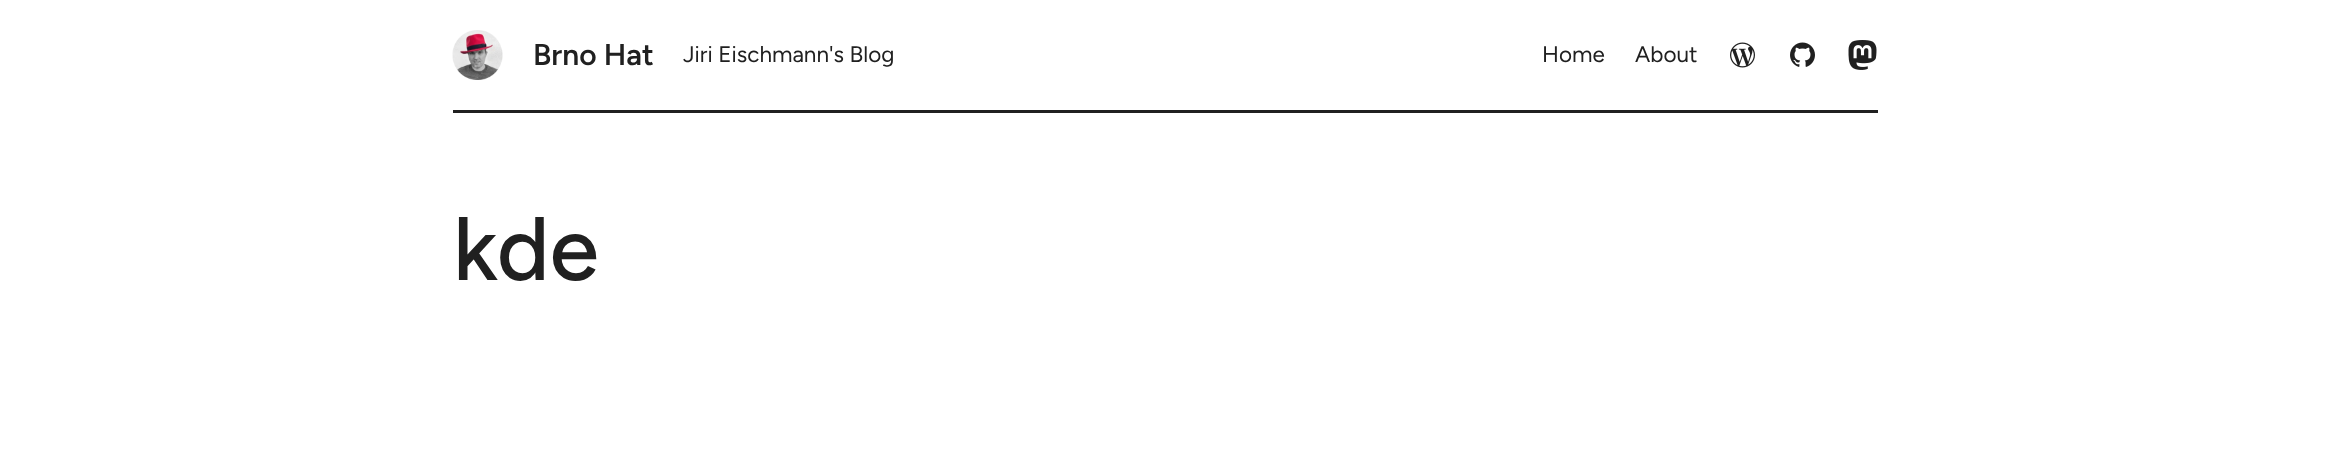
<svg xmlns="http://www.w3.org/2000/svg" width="2329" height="463">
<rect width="100%" height="100%" fill="#fff"/>
<rect x="453" y="110" width="1425" height="3" fill="#202020"/>
<image x="452" y="30" width="51" height="50" href="media/1.png"/>
<text x="533" y="65" style="font-family:Figtree;font-size:30px;font-weight:600;fill:#202020">Brno Hat</text>
<text x="683" y="62" style="font-family:Figtree;font-size:22.5px;fill:#202020">Jiri Eischmann's Blog</text>
<text x="1542" y="62" style="font-family:Figtree;font-size:22.5px;fill:#202020">Home</text>
<text x="1635" y="62" style="font-family:Figtree;font-size:22.5px;fill:#202020">About</text>
<image x="1730" y="42" width="25" height="26" href="media/2.png"/>
<image x="1790" y="42" width="25" height="25" href="media/3.png"/>
<image x="1848" y="40" width="29" height="30" href="media/4.png"/>
<text x="453" y="280" style="font-family:Figtree;font-size:90px;font-weight:500;fill:#202020">kde</text>
</svg>
